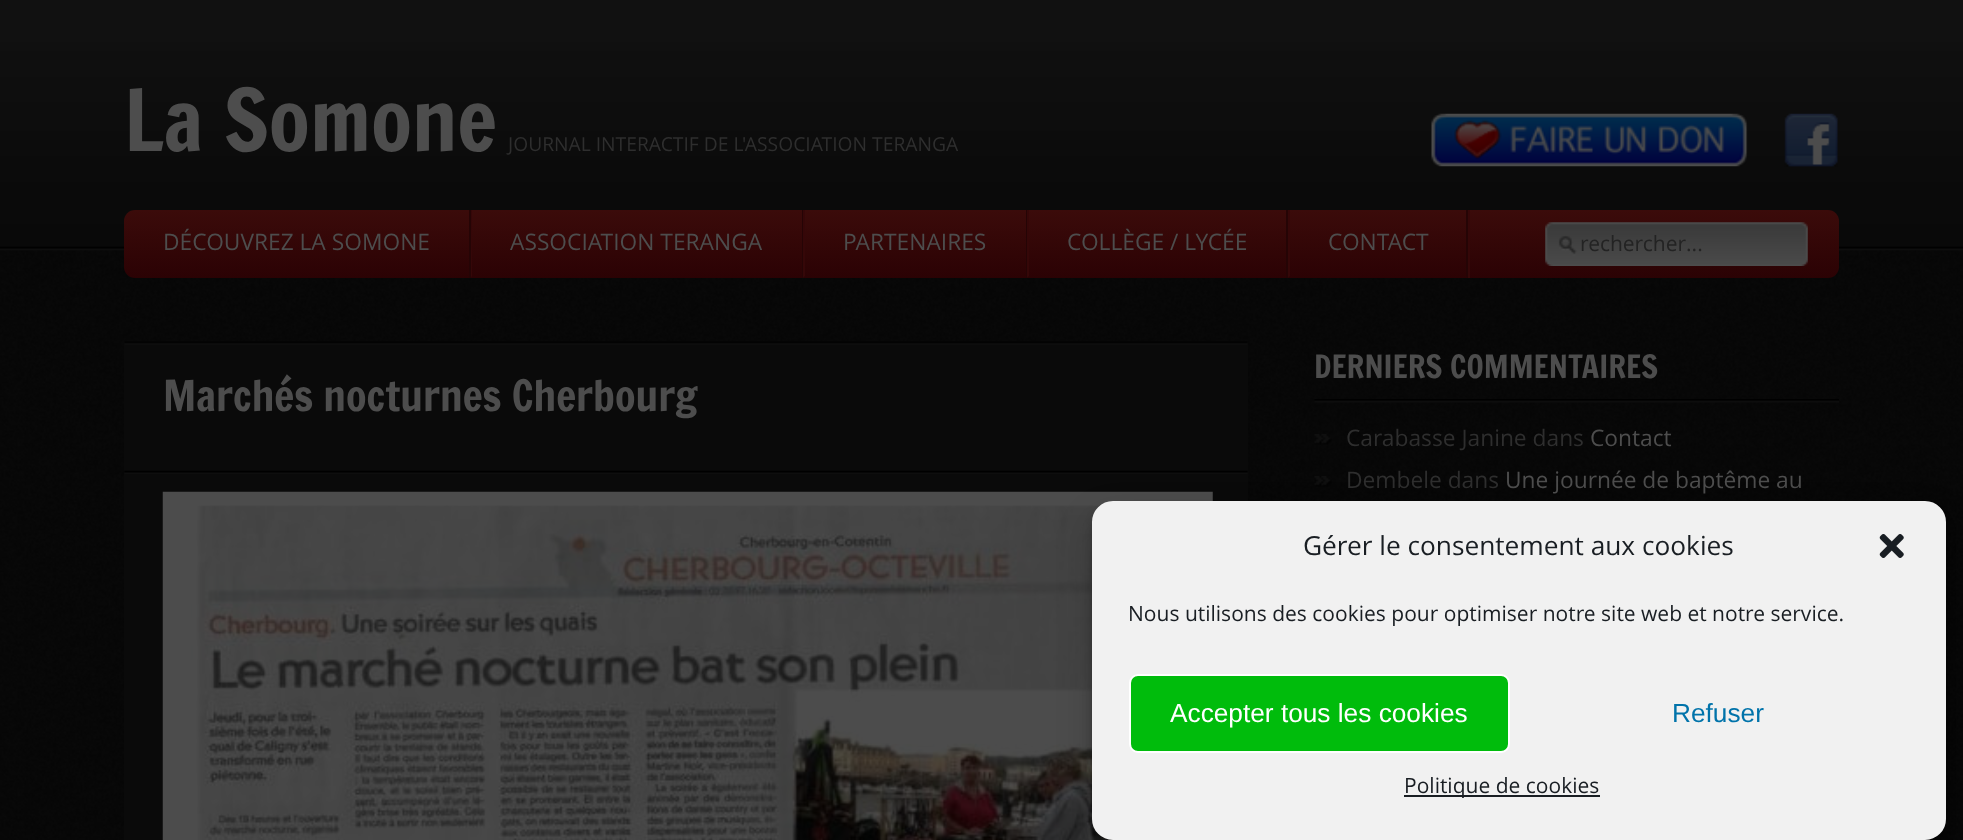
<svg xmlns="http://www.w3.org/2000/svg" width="1963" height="840">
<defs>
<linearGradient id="g1" gradientUnits="userSpaceOnUse" x1="982" y1="210" x2="982" y2="278"><stop offset="0" stop-color="#3b0b0a"/><stop offset="1" stop-color="#2b0204"/></linearGradient>
</defs>
<rect width="100%" height="100%" fill="#fff"/>
<image x="0" y="250" width="1963" height="590" href="media/1.png"/>
<rect width="1963" height="42" fill="#111"/>
<image x="0" y="42" width="1963" height="209" href="media/2.png"/>
<text x="124" y="151" style="font-family:Francois One;font-size:84px;fill:#4d4d4d">La Somone</text>
<text x="508" y="151" style="font-family:Open Sans;font-size:19.25px;fill:#2e2e2e">JOURNAL INTERACTIF DE L'ASSOCIATION TERANGA</text>
<image x="1431" y="113" width="317" height="54" href="media/3.png"/>
<image x="1784" y="113" width="54" height="54" href="media/4.png"/>
<rect x="124" y="210" width="1715" height="68" rx="11" fill="url(#g1)"/>
<rect x="469" y="210" width="2" height="68" fill="#250405"/>
<text x="163" y="250" style="font-family:Open Sans;font-size:22.75px;fill:#4d4d4d">DÉCOUVREZ LA SOMONE</text>
<rect x="802" y="210" width="2" height="68" fill="#250405"/>
<path d="M471 278v-68h1v66z" fill="#350708"/>
<text x="510" y="250" style="font-family:Open Sans;font-size:22.75px;fill:#4d4d4d">ASSOCIATION TERANGA</text>
<rect x="1026" y="210" width="2" height="68" fill="#250405"/>
<path d="M803 278v-68h2v66z" fill="#350708"/>
<text x="843" y="250" style="font-family:Open Sans;font-size:22.75px;fill:#4d4d4d">PARTENAIRES</text>
<rect x="1286" y="210" width="2" height="68" fill="#250405"/>
<path d="M1027 278v-68h2v66z" fill="#350708"/>
<text x="1067" y="250" style="font-family:Open Sans;font-size:22.75px;fill:#4d4d4d">COLLÈGE / LYCÉE</text>
<rect x="1468" y="210" width="2" height="68" fill="#350708"/>
<path d="M1468 210v68l-2-2v-66z" fill="#250405"/>
<path d="M1288 278v-68h2v66z" fill="#350708"/>
<text x="1328" y="250" style="font-family:Open Sans;font-size:22.75px;fill:#4d4d4d">CONTACT</text>
<image x="1545" y="222" width="263" height="44" href="media/5.png"/>
<text x="1580" y="251" style="font-family:Open Sans;font-size:21px;fill:#232323">rechercher...</text>
<rect x="124" y="341" width="1124" height="499" fill="#0a0a0a"/>
<image x="124" y="341" width="1124" height="4" href="media/6.png"/>
<text x="163" y="411" style="font-family:Francois One;font-size:42px;fill:#4d4d4d">Marchés nocturnes Cherbourg</text>
<image x="124" y="470" width="1124" height="4" href="media/7.png"/>
<image x="162" y="491" width="1051" height="349" href="media/8.png"/>
<image x="1314" y="399" width="525" height="4" href="media/9.png"/>
<text x="1314" y="378" style="font-family:Francois One;font-size:31.5px;fill:#4d4d4d">DERNIERS COMMENTAIRES</text>
<image x="1314" y="434" width="18" height="11" href="media/10.png"/>
<text x="1346" y="446" style="font-family:Open Sans;font-size:22.75px;fill:#2e2e2e">Carabasse Janine dans</text>
<text x="1590" y="446" style="font-family:Open Sans;font-size:22.75px;fill:#4d4d4d">Contact</text>
<image x="1314" y="476" width="18" height="11" href="media/11.png"/>
<text x="1346" y="488" style="font-family:Open Sans;font-size:22.75px;fill:#2e2e2e">Dembele dans</text>
<text x="1505" y="488" style="font-family:Open Sans;font-size:22.75px;fill:#4d4d4d">Une journée de baptême au</text>
<rect x="1092" y="511" width="854" height="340" rx="21" fill="#0000003b" filter="blur(5px)"/>
<rect x="1092" y="518" width="854" height="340" rx="21" fill="#00000030" filter="blur(17.5px)"/>
<rect x="1093" y="502" width="852" height="337" rx="20" fill="#f1f1f1" stroke="#f1f1f1" stroke-width="2"/>
<text x="1303" y="555" style="font-family:Open Sans;font-size:26.25px;fill:#191e23">Gérer le consentement aux cookies</text>
<image x="1879" y="534" width="25" height="24" href="media/12.png"/>
<text x="1128" y="621" style="font-family:Open Sans;font-size:21px;fill:#191e23">Nous utilisons des cookies pour optimiser notre site web et notre service.</text>
<rect x="1130" y="675" width="379" height="77" rx="8" fill="#00bc0c" stroke="#fff" stroke-width="2"/>
<text x="1170" y="722" style="font-family:Liberation Sans;font-size:26.25px;fill:#fff">Accepter tous les cookies</text>
<text x="1672" y="722" style="font-family:Liberation Sans;font-size:26.25px;fill:#0073aa">Refuser</text>
<rect x="1404" y="795" width="196" height="2" fill="#191e23"/>
<text x="1404" y="793" style="font-family:Open Sans;font-size:21px;fill:#191e23">Politique de cookies</text>
</svg>
